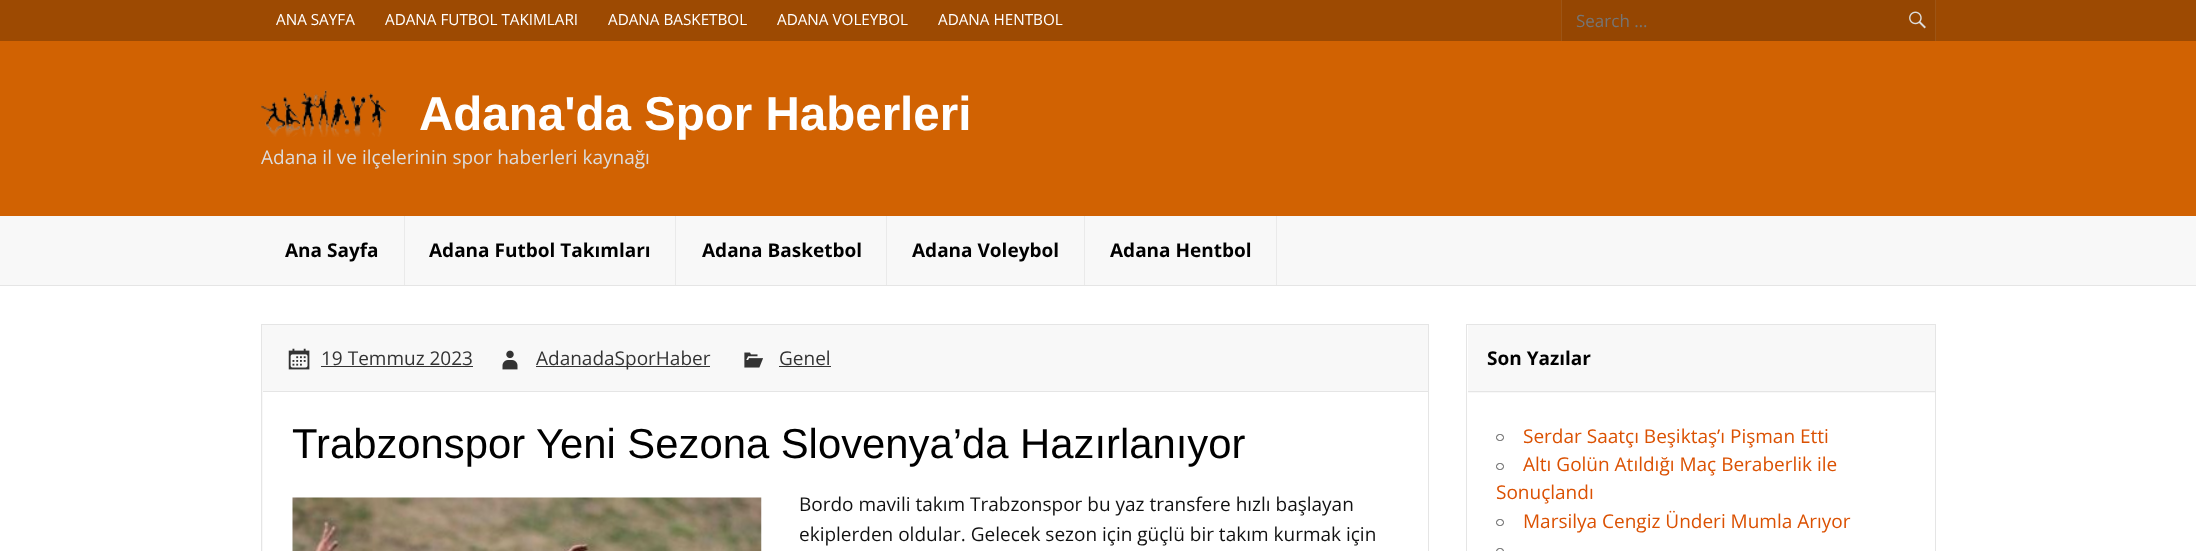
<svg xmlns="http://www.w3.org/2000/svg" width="2196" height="551">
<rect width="100%" height="100%" fill="#fff"/>
<rect y="41" width="2196" height="175" fill="#d16202"/>
<rect width="2196" height="41" fill="#9d4a02"/>
<text x="276" y="25" style="font-family:Open Sans;font-size:15.25px;fill:#fff">ANA SAYFA</text>
<text x="385" y="25" style="font-family:Open Sans;font-size:15.25px;fill:#fff">ADANA FUTBOL TAKIMLARI</text>
<text x="608" y="25" style="font-family:Open Sans;font-size:15.25px;fill:#fff">ADANA BASKETBOL</text>
<text x="777" y="25" style="font-family:Open Sans;font-size:15.25px;fill:#fff">ADANA VOLEYBOL</text>
<text x="938" y="25" style="font-family:Open Sans;font-size:15.25px;fill:#fff">ADANA HENTBOL</text>
<rect x="1562" width="373" height="41" fill="#954602"/>
<rect x="1935" width="1" height="41" fill="#9d5516"/>
<rect x="1561" width="1" height="41" fill="#9d5516"/>
<text x="1576" y="27" style="font-family:Open Sans;font-size:17px;fill:#757575">Search …</text>
<image x="1909" y="11" width="17" height="18" href="media/1.png"/>
<image x="261" y="90" width="126" height="47" href="media/2.png"/>
<text x="419" y="130" style="font-family:Liberation Sans;font-size:47.5px;font-weight:bold;fill:#fff">Adana'da Spor Haberleri</text>
<text x="261" y="164" style="font-family:Open Sans;font-size:19px;fill:#ddd">Adana il ve ilçelerinin spor haberleri kaynağı</text>
<rect y="216" width="2196" height="69" fill="#f8f8f8"/>
<rect y="285" width="2196" height="1" fill="#e5e5e5"/>
<rect x="404" y="216" width="1" height="69" fill="#eaeaea"/>
<text x="285" y="257" style="font-family:Open Sans;font-size:19px;font-weight:bold;fill:#000">Ana Sayfa</text>
<rect x="675" y="216" width="1" height="69" fill="#eaeaea"/>
<text x="429" y="257" style="font-family:Open Sans;font-size:19px;font-weight:bold;fill:#000">Adana Futbol Takımları</text>
<rect x="886" y="216" width="1" height="69" fill="#eaeaea"/>
<text x="702" y="257" style="font-family:Open Sans;font-size:19px;font-weight:bold;fill:#000">Adana Basketbol</text>
<rect x="1084" y="216" width="1" height="69" fill="#eaeaea"/>
<text x="912" y="257" style="font-family:Open Sans;font-size:19px;font-weight:bold;fill:#000">Adana Voleybol</text>
<rect x="1276" y="216" width="1" height="69" fill="#eaeaea"/>
<text x="1110" y="257" style="font-family:Open Sans;font-size:19px;font-weight:bold;fill:#000">Adana Hentbol</text>
<rect x="261.5" y="324.5" width="1167" height="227" fill="#f8f8f8" stroke="#e5e5e5"/>
<image x="288" y="348" width="22" height="22" href="media/3.png"/>
<text x="321" y="365" style="font-family:Open Sans;font-size:19px;fill:#333">19 Temmuz 2023</text>
<rect x="321" y="366" width="152" height="1" fill="#333"/>
<image x="502" y="350" width="16" height="20" href="media/4.png"/>
<rect x="536" y="366" width="174" height="1" fill="#333"/>
<text x="536" y="365" style="font-family:Open Sans;font-size:19px;fill:#333">AdanadaSporHaber</text>
<image x="744" y="352" width="19" height="16" href="media/5.png"/>
<text x="779" y="365" style="font-family:Open Sans;font-size:19px;fill:#333">Genel</text>
<rect x="779" y="366" width="52" height="1" fill="#333"/>
<rect x="263" y="392" width="1165" height="159" fill="#fff"/>
<rect x="263" y="391" width="1165" height="1" fill="#e5e5e5"/>
<text x="292" y="458" style="font-family:Liberation Sans;font-size:41.8px;fill:#000">Trabzonspor Yeni Sezona Slovenya’da Hazırlanıyor</text>
<image x="292" y="497" width="470" height="54" href="media/6.png"/>
<text x="799" y="511" style="font-family:Open Sans;font-size:19px;fill:#111">Bordo mavili takım Trabzonspor bu yaz transfere hızlı başlayan</text>
<text x="799" y="541" style="font-family:Open Sans;font-size:19px;fill:#111">ekiplerden oldular. Gelecek sezon için güçlü bir takım kurmak için</text>
<rect x="1466.5" y="324.5" width="469" height="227" fill="none" stroke="#e5e5e5"/>
<rect x="1468" y="325" width="467" height="68" fill="#f8f8f8"/>
<rect x="1468" y="391" width="467" height="1" fill="#e5e5e5"/>
<text x="1487" y="365" style="font-family:Open Sans;font-size:19px;font-weight:bold;fill:#000">Son Yazılar</text>
<rect x="1496.5" y="434.5" width="7" height="6" rx="3" fill="none" stroke="#555"/>
<text x="1523" y="443" style="font-family:Open Sans;font-size:19px;fill:#db5102">Serdar Saatçı Beşiktaş’ı Pişman Etti</text>
<rect x="1496.5" y="463.5" width="7" height="6" rx="3" fill="none" stroke="#555"/>
<text x="1523" y="471" style="font-family:Open Sans;font-size:19px;fill:#db5102">Altı Golün Atıldığı Maç Beraberlik ile</text>
<text x="1496" y="499" style="font-family:Open Sans;font-size:19px;fill:#db5102">Sonuçlandı</text>
<rect x="1496.5" y="519.5" width="7" height="6" rx="3" fill="none" stroke="#555"/>
<text x="1523" y="528" style="font-family:Open Sans;font-size:19px;fill:#db5102">Marsilya Cengiz Ünderi Mumla Arıyor</text>
<rect x="1496.5" y="548.5" width="7" height="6" rx="3" fill="none" stroke="#555"/>
</svg>
